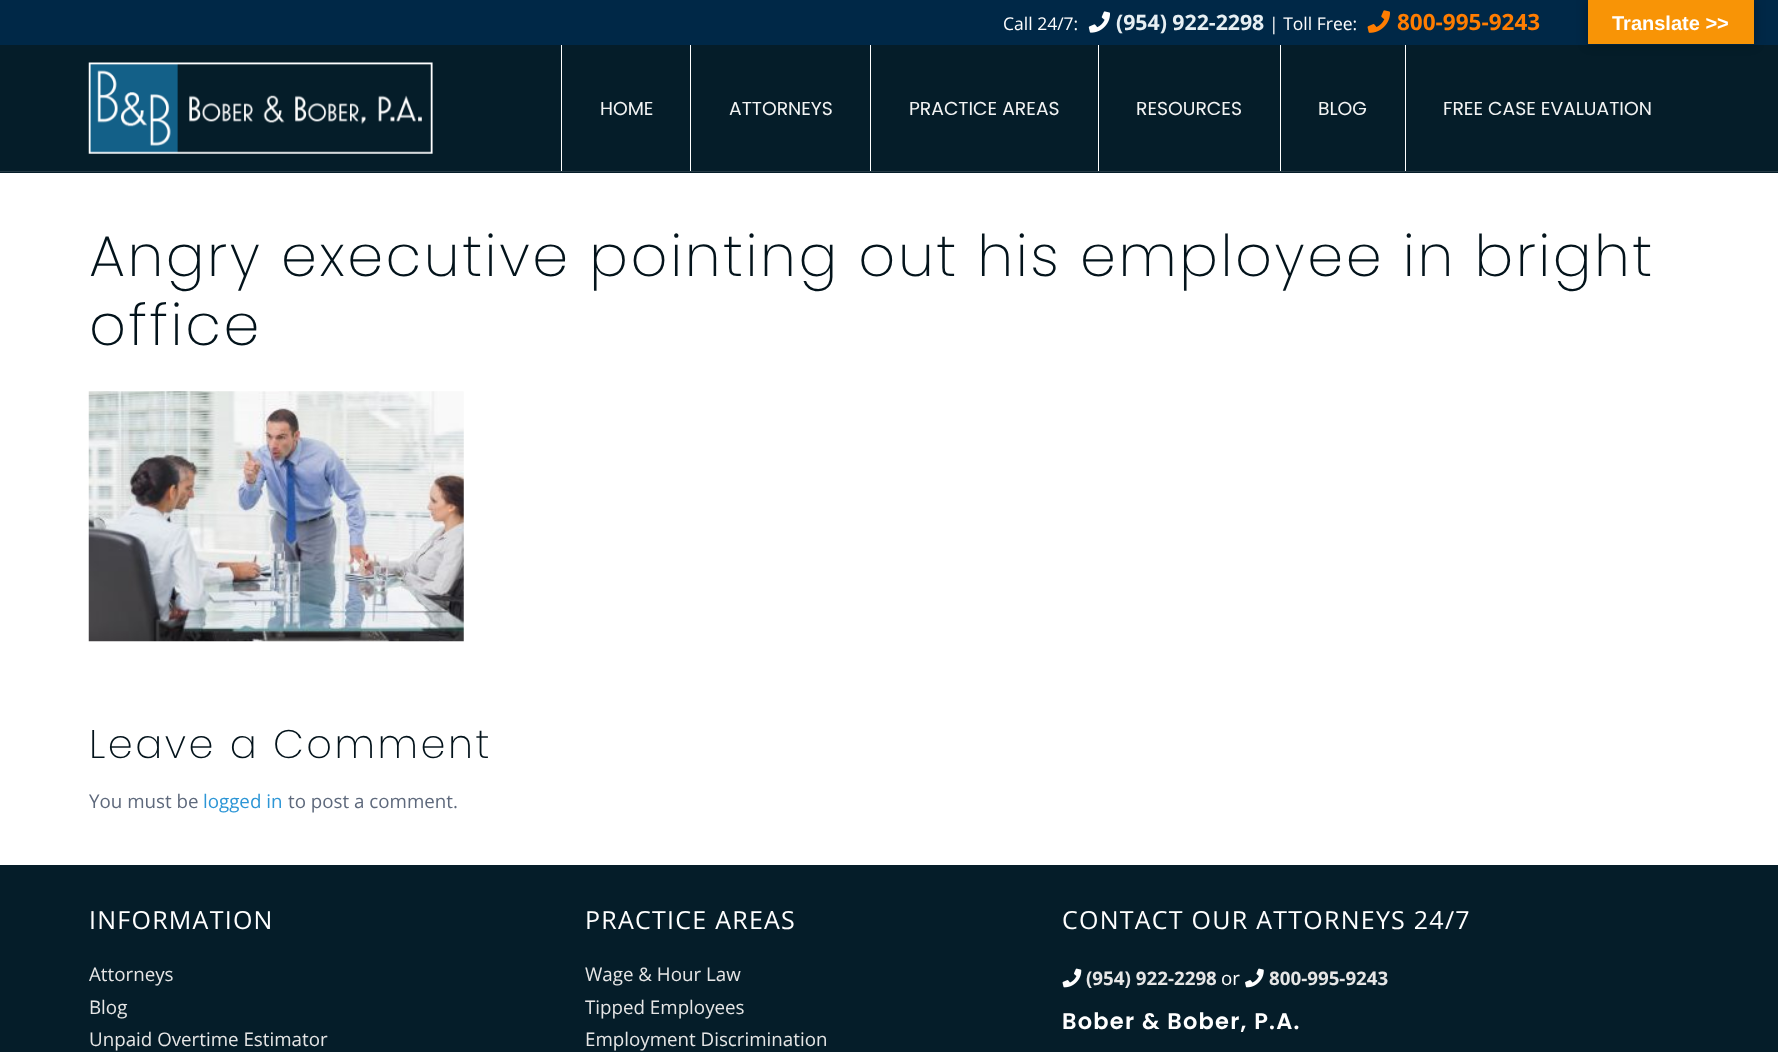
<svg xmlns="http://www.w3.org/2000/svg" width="1778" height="1052">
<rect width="100%" height="100%" fill="#fff"/>
<rect width="1778" height="45" fill="#002847"/>
<text x="1003" y="30" style="font-family:Open Sans;font-size:17.5px;fill:#fff">Call 24/7:</text>
<image x="1088" y="11" width="22" height="22" href="media/1.png"/>
<text x="1116" y="30" style="font-family:Open Sans;font-size:21.25px;font-weight:bold;fill:#e7eff3">(954) 922-2298</text>
<text x="1269" y="30" style="font-family:Open Sans;font-size:17.5px;fill:#fff">| Toll Free:</text>
<image x="1367" y="10" width="23" height="23" href="media/2.png"/>
<text x="1397" y="30" style="font-family:Open Sans;font-size:22.5px;font-weight:bold;fill:#ff7d01">800-995-9243</text>
<rect y="45" width="1778" height="128" fill="#051d29"/>
<rect y="171" width="1778" height="1" fill="#263a45"/>
<image x="88" y="62" width="345" height="92" href="media/3.png"/>
<rect x="561" y="45" width="1" height="126" fill="#fff"/>
<text x="600" y="115" style="font-family:Poppins;font-size:18.75px;fill:#f3f4f4">HOME</text>
<rect x="690" y="45" width="1" height="126" fill="#fff"/>
<text x="729" y="115" style="font-family:Poppins;font-size:18.75px;fill:#f3f4f4">ATTORNEYS</text>
<rect x="870" y="45" width="1" height="126" fill="#fff"/>
<text x="909" y="115" style="font-family:Poppins;font-size:18.75px;fill:#f3f4f4">PRACTICE AREAS</text>
<rect x="1098" y="45" width="1" height="126" fill="#fff"/>
<text x="1136" y="115" style="font-family:Poppins;font-size:18.75px;fill:#f3f4f4">RESOURCES</text>
<rect x="1280" y="45" width="1" height="126" fill="#fff"/>
<text x="1318" y="115" style="font-family:Poppins;font-size:18.75px;fill:#f3f4f4">BLOG</text>
<rect x="1405" y="45" width="1" height="126" fill="#fff"/>
<text x="1443" y="115" style="font-family:Poppins;font-size:18.75px;fill:#f3f4f4">FREE CASE EVALUATION</text>
<text x="89" y="276" style="font-family:Poppins;font-size:57.5px;font-weight:200;letter-spacing:2.5px;fill:#03131b">Angry executive pointing out his employee in bright</text>
<text x="89" y="345" style="font-family:Poppins;font-size:57.5px;font-weight:200;letter-spacing:2.5px;fill:#03131b">office</text>
<image x="88" y="391" width="376" height="251" href="media/4.png"/>
<text x="89" y="758" style="font-family:Poppins;font-size:40px;font-weight:200;letter-spacing:2.5px;fill:#03131b">Leave a Comment</text>
<text x="89" y="808" style="font-family:Open Sans;font-size:18.75px;fill:#5e697c">You must be</text>
<text x="203" y="808" style="font-family:Open Sans;font-size:18.75px;fill:#2d96d6">logged in</text>
<text x="288" y="808" style="font-family:Open Sans;font-size:18.75px;fill:#5e697c">to post a comment.</text>
<rect y="865" width="1778" height="187" fill="#051d29"/>
<text x="89" y="929" style="font-family:Open Sans;font-size:25px;letter-spacing:1.25px;fill:#fff">INFORMATION</text>
<text x="89" y="981" style="font-family:Open Sans;font-size:18.75px;fill:#e6e6e6">Attorneys</text>
<text x="89" y="1014" style="font-family:Open Sans;font-size:18.75px;fill:#e6e6e6">Blog</text>
<text x="89" y="1046" style="font-family:Open Sans;font-size:18.75px;fill:#e6e6e6">Unpaid Overtime Estimator</text>
<text x="585" y="929" style="font-family:Open Sans;font-size:25px;letter-spacing:1.25px;fill:#fff">PRACTICE AREAS</text>
<text x="585" y="981" style="font-family:Open Sans;font-size:18.75px;fill:#e6e6e6">Wage &amp; Hour Law</text>
<text x="585" y="1014" style="font-family:Open Sans;font-size:18.75px;fill:#e6e6e6">Tipped Employees</text>
<text x="585" y="1046" style="font-family:Open Sans;font-size:18.75px;fill:#e6e6e6">Employment Discrimination</text>
<text x="1062" y="929" style="font-family:Open Sans;font-size:25px;letter-spacing:1.25px;fill:#fff">CONTACT OUR ATTORNEYS 24/7</text>
<image x="1062" y="968" width="20" height="20" href="media/5.png"/>
<text x="1086" y="985" style="font-family:Open Sans;font-size:18.75px;font-weight:bold;fill:#e6e6e6">(954) 922-2298</text>
<text x="1221" y="985" style="font-family:Open Sans;font-size:18.75px;fill:#fff">or</text>
<image x="1245" y="968" width="19" height="20" href="media/6.png"/>
<text x="1269" y="985" style="font-family:Open Sans;font-size:18.75px;font-weight:bold;fill:#e6e6e6">800-995-9243</text>
<text x="1062" y="1029" style="font-family:Poppins;font-size:22.5px;font-weight:600;letter-spacing:1.25px;fill:#fff">Bober &amp; Bober, P.A.</text>
<rect x="1588" width="166" height="44" fill="#0000004d" filter="blur(5.5px)"/>
<rect x="1588" width="166" height="44" fill="#f89406"/>
<text x="1612" y="30" style="font-family:Liberation Sans;font-size:20px;font-weight:bold;fill:#fff">Translate &gt;&gt;</text>
</svg>
